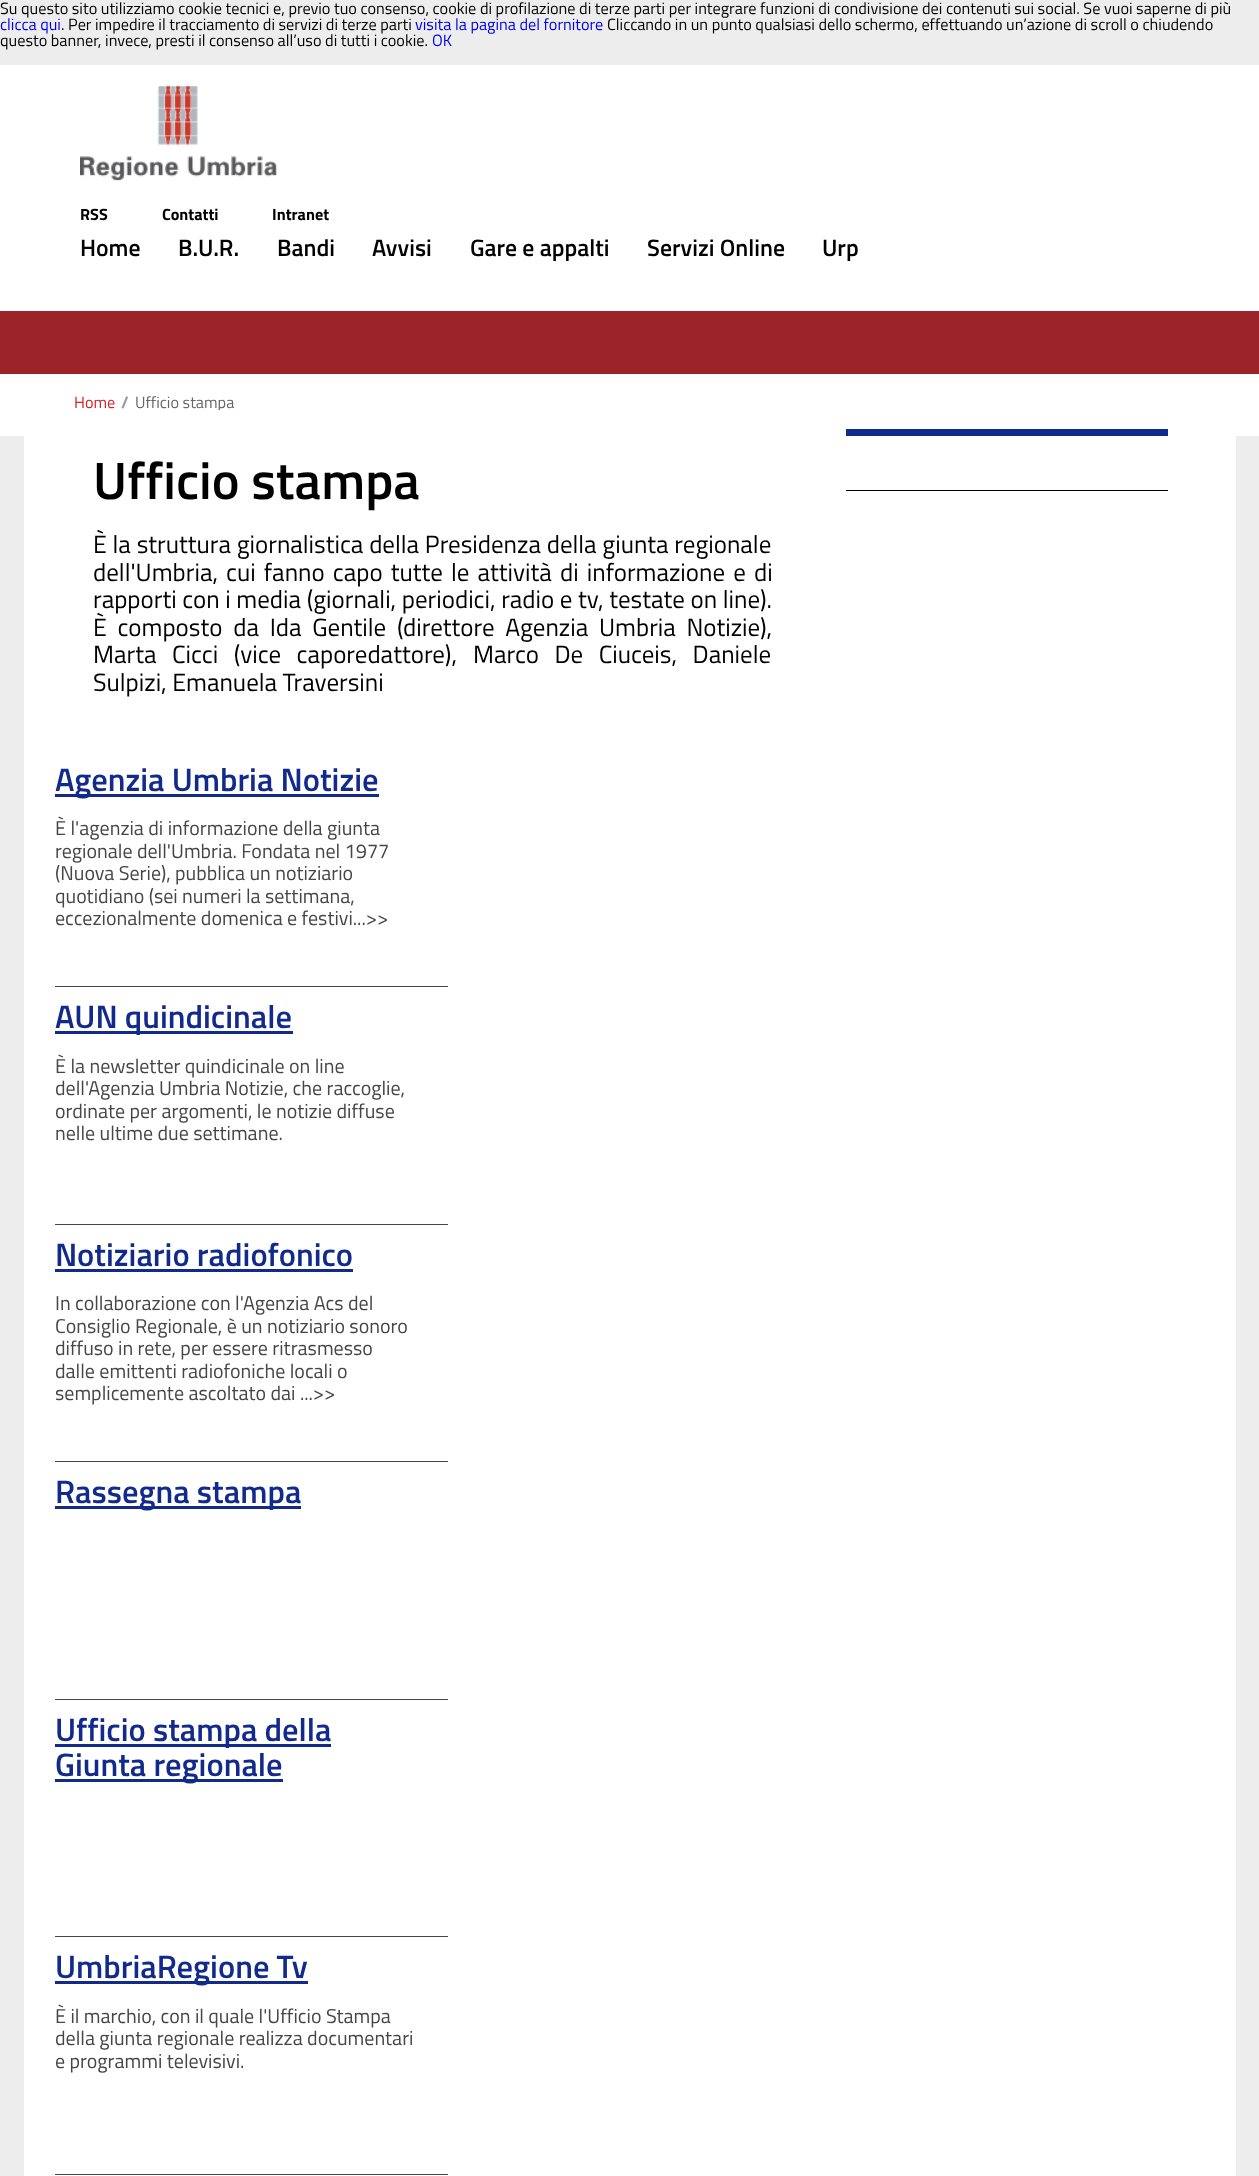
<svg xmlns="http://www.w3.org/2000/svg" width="1259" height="2176">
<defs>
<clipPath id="clip1"><rect x="55" y="390" width="1150" height="20" rx="5"/></clipPath>
</defs>
<rect width="100%" height="100%" fill="#ededed"/>
<text x="0" y="14" style="font-family:Titillium Web;font-size:16.25px;fill:#000">Su questo sito utilizziamo cookie tecnici e, previo tuo consenso, cookie di profilazione di terze parti per integrare funzioni di condivisione dei contenuti sui social. Se vuoi saperne di più</text>
<text x="0" y="30" style="font-family:Titillium Web;font-size:16.25px;fill:#00e">clicca qui</text>
<text x="61" y="30" style="font-family:Titillium Web;font-size:16.25px;fill:#000">. Per impedire il tracciamento di servizi di terze parti</text>
<text x="415" y="30" style="font-family:Titillium Web;font-size:16.25px;fill:#00e">visita la pagina del fornitore</text>
<text x="607" y="30" style="font-family:Titillium Web;font-size:16.25px;fill:#000">Cliccando in un punto qualsiasi dello schermo, effettuando un’azione di scroll o chiudendo</text>
<text x="0" y="46" style="font-family:Titillium Web;font-size:16.25px;fill:#000">questo banner, invece, presti il consenso all’uso di tutti i cookie.</text>
<text x="432" y="46" style="font-family:Titillium Web;font-size:16.25px;fill:#00e">OK</text>
<rect y="65" width="1259" height="246" fill="#fff"/>
<image x="80" y="86" width="197" height="95" href="media/1.png"/>
<text x="80" y="220" style="font-family:Titillium Web;font-size:16.25px;font-weight:bold;fill:#000">RSS</text>
<text x="162" y="220" style="font-family:Titillium Web;font-size:16.25px;font-weight:bold;fill:#000">Contatti</text>
<text x="272" y="220" style="font-family:Titillium Web;font-size:16.25px;font-weight:bold;fill:#000">Intranet</text>
<text x="80" y="256" style="font-family:Titillium Web;font-size:23.75px;font-weight:600;fill:#000">Home</text>
<text x="178" y="256" style="font-family:Titillium Web;font-size:23.75px;font-weight:600;fill:#000">B.U.R.</text>
<text x="277" y="256" style="font-family:Titillium Web;font-size:23.75px;font-weight:600;fill:#000">Bandi</text>
<text x="372" y="256" style="font-family:Titillium Web;font-size:23.75px;font-weight:600;fill:#000">Avvisi</text>
<text x="470" y="256" style="font-family:Titillium Web;font-size:23.75px;font-weight:600;fill:#000">Gare e appalti</text>
<text x="647" y="256" style="font-family:Titillium Web;font-size:23.75px;font-weight:600;fill:#000">Servizi Online</text>
<text x="822" y="256" style="font-family:Titillium Web;font-size:23.75px;font-weight:600;fill:#000">Urp</text>
<rect y="311" width="1259" height="63" fill="#9c2328"/>
<rect y="374" width="1259" height="62" fill="#fff"/>
<rect x="24" y="436" width="1212" height="1740" fill="#fff"/>
<text x="74" y="408" style="font-family:Titillium Web;font-size:16.25px;fill:#d0232b">Home</text>
<text x="121" y="408" style="font-family:Titillium Web;font-size:16.25px;font-weight:bold;fill:#999">/</text>
<g clip-path="url(#clip1)">
<text x="135" y="408" style="font-family:Titillium Web;font-size:16.25px;fill:#676767">Ufficio stampa</text>
</g>
<text x="93" y="499" style="font-family:Titillium Web;font-size:52.5px;font-weight:600;fill:#000">Ufficio stampa</text>
<text x="93" y="553" word-spacing="0.25" style="font-family:Titillium Web;font-size:25px;fill:#000">È la struttura giornalistica della Presidenza della giunta regionale</text>
<text x="93" y="581" word-spacing="2.6" style="font-family:Titillium Web;font-size:25px;fill:#000">dell'Umbria, cui fanno capo tutte le attività di informazione e di</text>
<text x="93" y="608" word-spacing="0.1" style="font-family:Titillium Web;font-size:25px;fill:#000">rapporti con i media (giornali, periodici, radio e tv, testate on line).</text>
<text x="93" y="636" word-spacing="5.25" style="font-family:Titillium Web;font-size:25px;fill:#000">È composto da Ida Gentile (direttore Agenzia Umbria Notizie),</text>
<text x="93" y="663" word-spacing="10" style="font-family:Titillium Web;font-size:25px;fill:#000">Marta Cicci (vice caporedattore),</text>
<text x="473" y="663" word-spacing="10" style="font-family:Titillium Web;font-size:25px;fill:#000">Marco De Ciuceis, Daniele</text>
<text x="93" y="691" style="font-family:Titillium Web;font-size:25px;fill:#000">Sulpizi, Emanuela Traversini</text>
<rect x="55" y="986" width="393" height="1" fill="#464646"/>
<rect x="55" y="794" width="324" height="3" fill="#112a8c"/>
<text x="55" y="791" style="font-family:Titillium Web;font-size:32.5px;font-weight:600;fill:#112a8c">Agenzia Umbria Notizie</text>
<text x="55" y="835" style="font-family:Titillium Web;font-size:20px;fill:#464646">È l'agenzia di informazione della giunta</text>
<text x="55" y="858" style="font-family:Titillium Web;font-size:20px;fill:#464646">regionale dell'Umbria. Fondata nel 1977</text>
<text x="55" y="880" style="font-family:Titillium Web;font-size:20px;fill:#464646">(Nuova Serie), pubblica un notiziario</text>
<text x="55" y="903" style="font-family:Titillium Web;font-size:20px;fill:#464646">quotidiano (sei numeri la settimana,</text>
<text x="55" y="925" style="font-family:Titillium Web;font-size:20px;fill:#464646">eccezionalmente domenica e festivi...&gt;&gt;</text>
<rect x="55" y="1224" width="393" height="1" fill="#464646"/>
<rect x="55" y="1031" width="238" height="3" fill="#112a8c"/>
<text x="55" y="1028" style="font-family:Titillium Web;font-size:32.5px;font-weight:600;fill:#112a8c">AUN quindicinale</text>
<text x="55" y="1073" style="font-family:Titillium Web;font-size:20px;fill:#464646">È la newsletter quindicinale on line</text>
<text x="55" y="1095" style="font-family:Titillium Web;font-size:20px;fill:#464646">dell'Agenzia Umbria Notizie, che raccoglie,</text>
<text x="55" y="1118" style="font-family:Titillium Web;font-size:20px;fill:#464646">ordinate per argomenti, le notizie diffuse</text>
<text x="55" y="1140" style="font-family:Titillium Web;font-size:20px;fill:#464646">nelle ultime due settimane.</text>
<rect x="55" y="1461" width="393" height="1" fill="#464646"/>
<text x="55" y="1266" style="font-family:Titillium Web;font-size:32.5px;font-weight:600;fill:#112a8c">Notiziario radiofonico</text>
<rect x="55" y="1269" width="298" height="3" fill="#112a8c"/>
<text x="55" y="1310" style="font-family:Titillium Web;font-size:20px;fill:#464646">In collaborazione con l'Agenzia Acs del</text>
<text x="55" y="1333" style="font-family:Titillium Web;font-size:20px;fill:#464646">Consiglio Regionale, è un notiziario sonoro</text>
<text x="55" y="1355" style="font-family:Titillium Web;font-size:20px;fill:#464646">diffuso in rete, per essere ritrasmesso</text>
<text x="55" y="1378" style="font-family:Titillium Web;font-size:20px;fill:#464646">dalle emittenti radiofoniche locali o</text>
<text x="55" y="1400" style="font-family:Titillium Web;font-size:20px;fill:#464646">semplicemente ascoltato dai ...&gt;&gt;</text>
<rect x="55" y="1699" width="393" height="1" fill="#464646"/>
<rect x="55" y="1506" width="246" height="3" fill="#112a8c"/>
<text x="55" y="1503" style="font-family:Titillium Web;font-size:32.5px;font-weight:600;fill:#112a8c">Rassegna stampa</text>
<rect x="55" y="1936" width="393" height="1" fill="#464646"/>
<rect x="55" y="1744" width="276" height="3" fill="#112a8c"/>
<text x="55" y="1741" style="font-family:Titillium Web;font-size:32.5px;font-weight:600;fill:#112a8c">Ufficio stampa della</text>
<rect x="55" y="1779" width="228" height="3" fill="#112a8c"/>
<text x="55" y="1776" style="font-family:Titillium Web;font-size:32.5px;font-weight:600;fill:#112a8c">Giunta regionale</text>
<rect x="55" y="2174" width="393" height="1" fill="#464646"/>
<rect x="55" y="1981" width="253" height="3" fill="#112a8c"/>
<text x="55" y="1978" style="font-family:Titillium Web;font-size:32.5px;font-weight:600;fill:#112a8c">UmbriaRegione Tv</text>
<text x="55" y="2023" style="font-family:Titillium Web;font-size:20px;fill:#464646">È il marchio, con il quale l'Ufficio Stampa</text>
<text x="55" y="2045" style="font-family:Titillium Web;font-size:20px;fill:#464646">della giunta regionale realizza documentari</text>
<text x="55" y="2068" style="font-family:Titillium Web;font-size:20px;fill:#464646">e programmi televisivi.</text>
<rect x="846" y="429" width="322" height="7" fill="#112a8c"/>
<rect x="846" y="490" width="322" height="1" fill="#000"/>
</svg>
